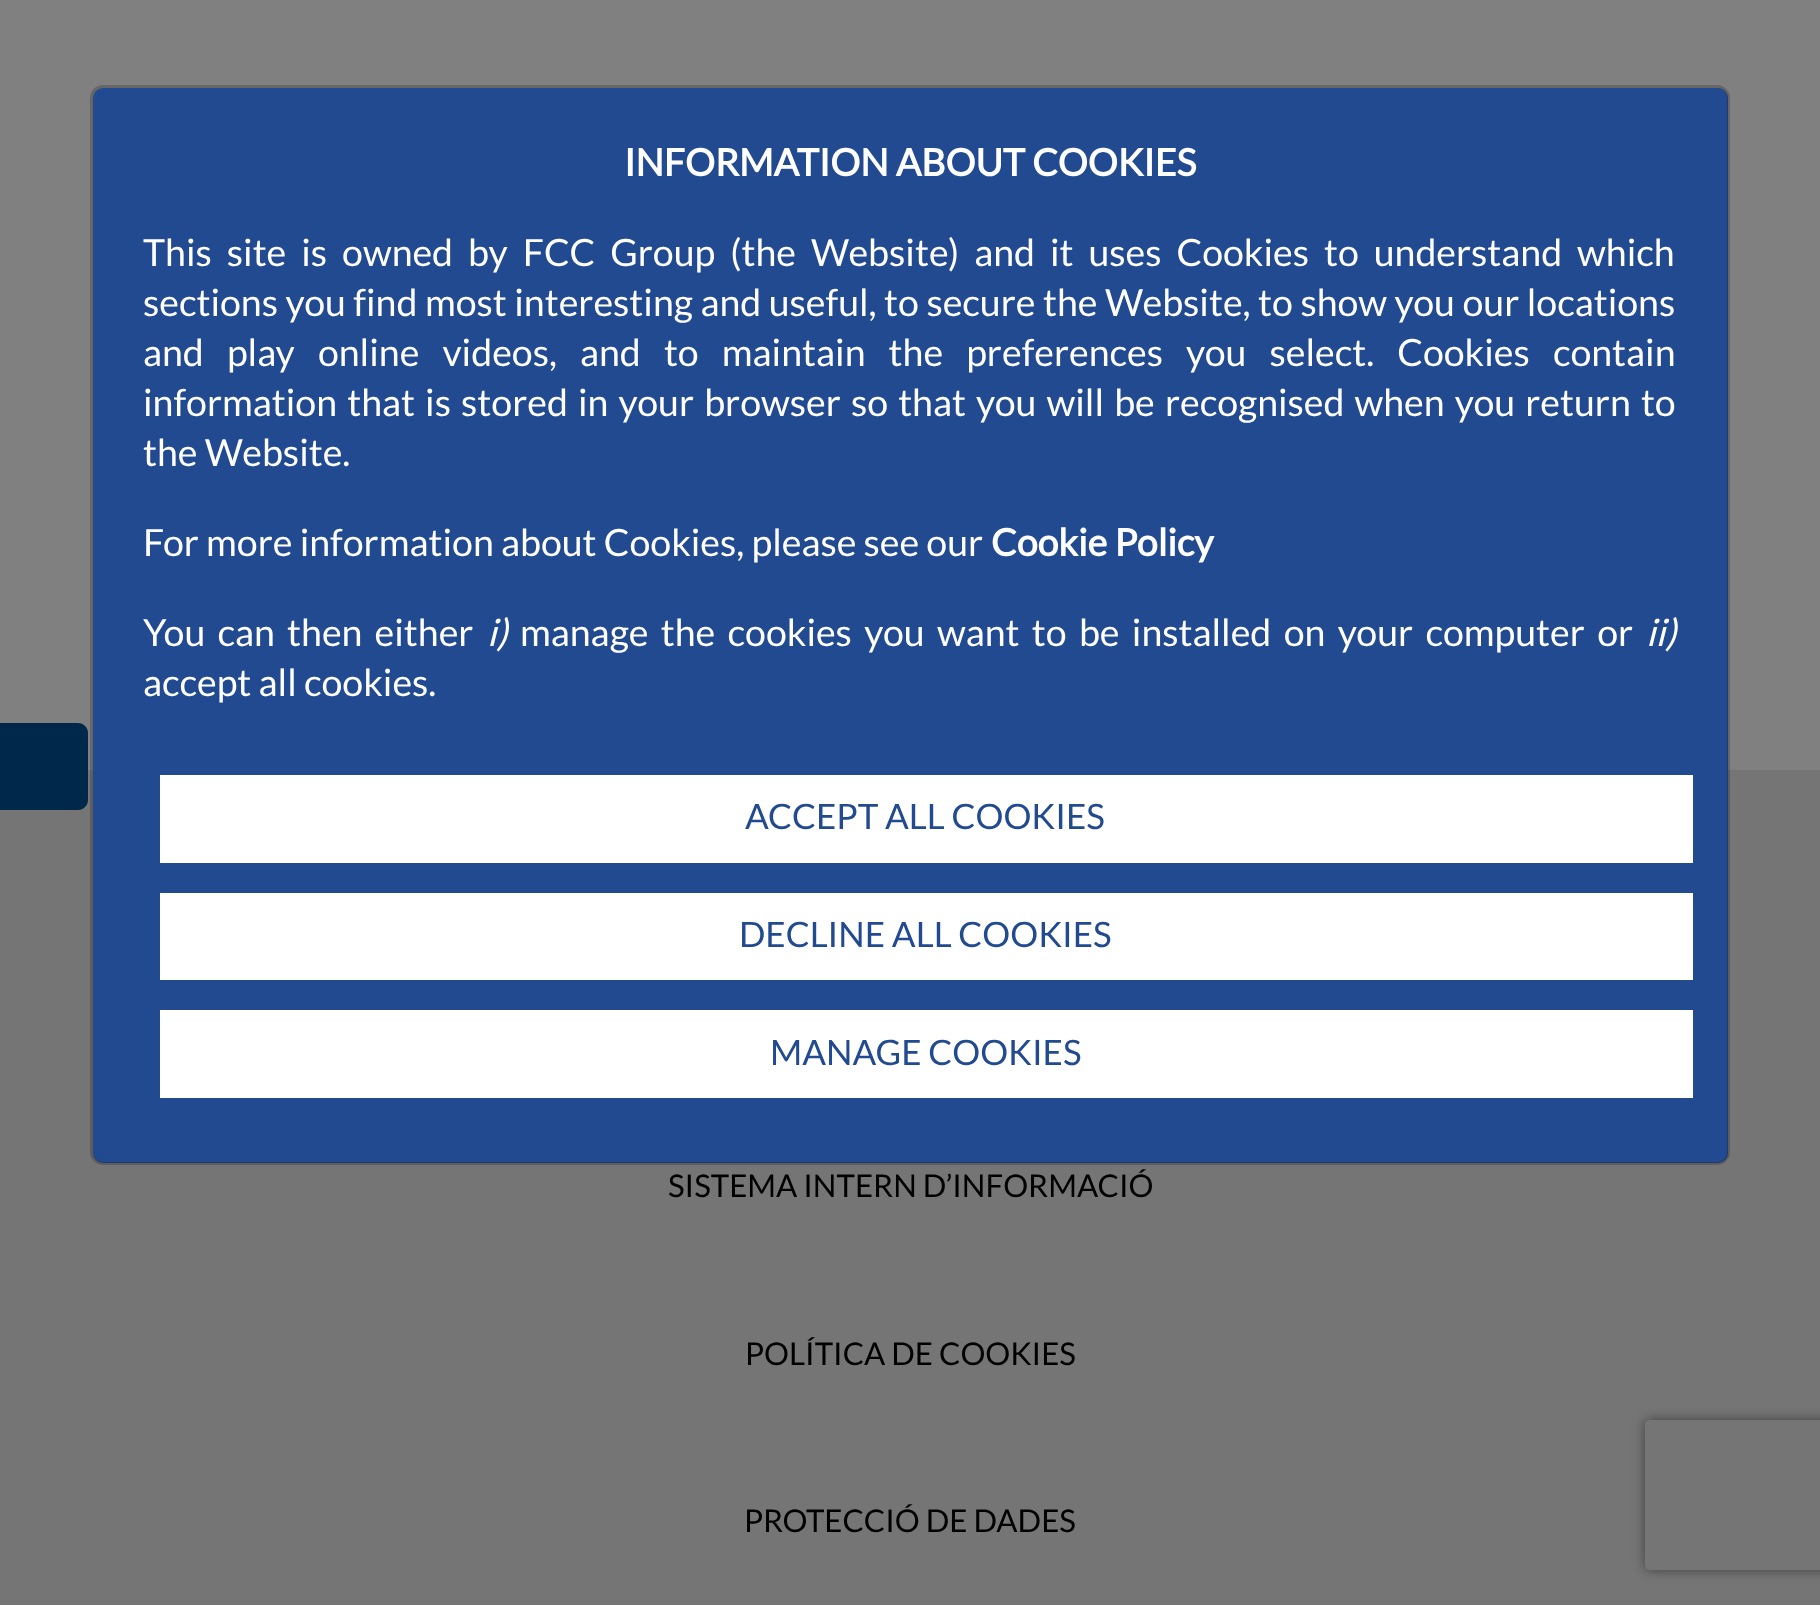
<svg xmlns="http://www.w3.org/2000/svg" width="1820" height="1605">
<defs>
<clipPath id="clip1"><path d="M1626 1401h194v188h-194zm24 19h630c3 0 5 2 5 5v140c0 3-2 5-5 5h-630c-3 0-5-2-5-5v-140c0-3 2-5 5-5z" clip-rule="evenodd"/></clipPath>
</defs>
<rect width="100%" height="100%" fill="#808080"/>
<rect y="770" width="1820" height="835" fill="#757575"/>
<path d="M0 723h78c5.5 0 10 4.5 10 10v67c0 5.5-4.5 10-10 10h-78z" fill="#00284b"/>
<rect x="93" y="88" width="1635" height="1075" rx="10" fill="#224a91"/>
<rect x="91.5" y="86.5" width="1637" height="1077" rx="11.5" fill="none" stroke="#00000033" stroke-width="3"/>
<text x="624" y="176" style="font-family:Lato;font-size:37.5px;font-weight:bold;fill:#fff">INFORMATION ABOUT COOKIES</text>
<text x="143" y="266" word-spacing="7.75" style="font-family:Lato;font-size:37.5px;fill:#fff">This site is owned by FCC Group (the Website) and it uses Cookies to understand which</text>
<text x="143" y="316" word-spacing="0.3" style="font-family:Lato;font-size:37.5px;fill:#fff">sections you find most interesting and useful, to secure the Website, to show you our locations</text>
<text x="143" y="366" word-spacing="15.9" style="font-family:Lato;font-size:37.5px;fill:#fff">and play online videos, and to maintain the preferences you select. Cookies contain</text>
<text x="143" y="416" word-spacing="2.9" style="font-family:Lato;font-size:37.5px;fill:#fff">information that is stored in your browser so that you will be recognised when you return to</text>
<text x="143" y="466" style="font-family:Lato;font-size:37.5px;fill:#fff">the Website.</text>
<text x="143" y="556" style="font-family:Lato;font-size:37.5px;fill:#fff">For more information about Cookies, please see our</text>
<text x="991" y="556" style="font-family:Lato;font-size:37.5px;font-weight:bold;fill:#fff">Cookie Policy</text>
<text x="143" y="646" word-spacing="5" style="font-family:Lato;font-size:37.5px;fill:#fff">You can then either</text>
<text x="487" y="646" style="font-family:Lato;font-size:37.5px;font-style:italic;fill:#fff">i)</text>
<text x="520" y="646" word-spacing="5.1" style="font-family:Lato;font-size:37.5px;fill:#fff">manage the cookies you want to be installed on your computer or</text>
<text x="1646" y="646" style="font-family:Lato;font-size:37.5px;font-style:italic;fill:#fff">ii)</text>
<text x="143" y="696" style="font-family:Lato;font-size:37.5px;fill:#fff">accept all cookies.</text>
<rect x="161.5" y="776.5" width="1530" height="85" fill="#fff" stroke="#fff" stroke-width="3"/>
<text x="745" y="829" style="font-family:Lato;font-size:35px;fill:#224a91">ACCEPT ALL COOKIES</text>
<rect x="161.5" y="894.5" width="1530" height="84" fill="#fff" stroke="#fff" stroke-width="3"/>
<text x="739" y="947" style="font-family:Lato;font-size:35px;fill:#224a91">DECLINE ALL COOKIES</text>
<rect x="161.5" y="1011.5" width="1530" height="85" fill="#fff" stroke="#fff" stroke-width="3"/>
<text x="770" y="1065" style="font-family:Lato;font-size:35px;fill:#224a91">MANAGE COOKIES</text>
<text x="668" y="1197" style="font-family:Lato;font-size:31.25px;fill:#000">SISTEMA INTERN D’INFORMACIÓ</text>
<text x="745" y="1365" style="font-family:Lato;font-size:31.25px;fill:#000">POLÍTICA DE COOKIES</text>
<text x="744" y="1532" style="font-family:Lato;font-size:31.25px;fill:#000">PROTECCIÓ DE DADES</text>
<g clip-path="url(#clip1)">
<rect x="1645" y="1420" width="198" height="150" rx="5" fill="#404040" filter="blur(6px)"/>
</g>
</svg>
